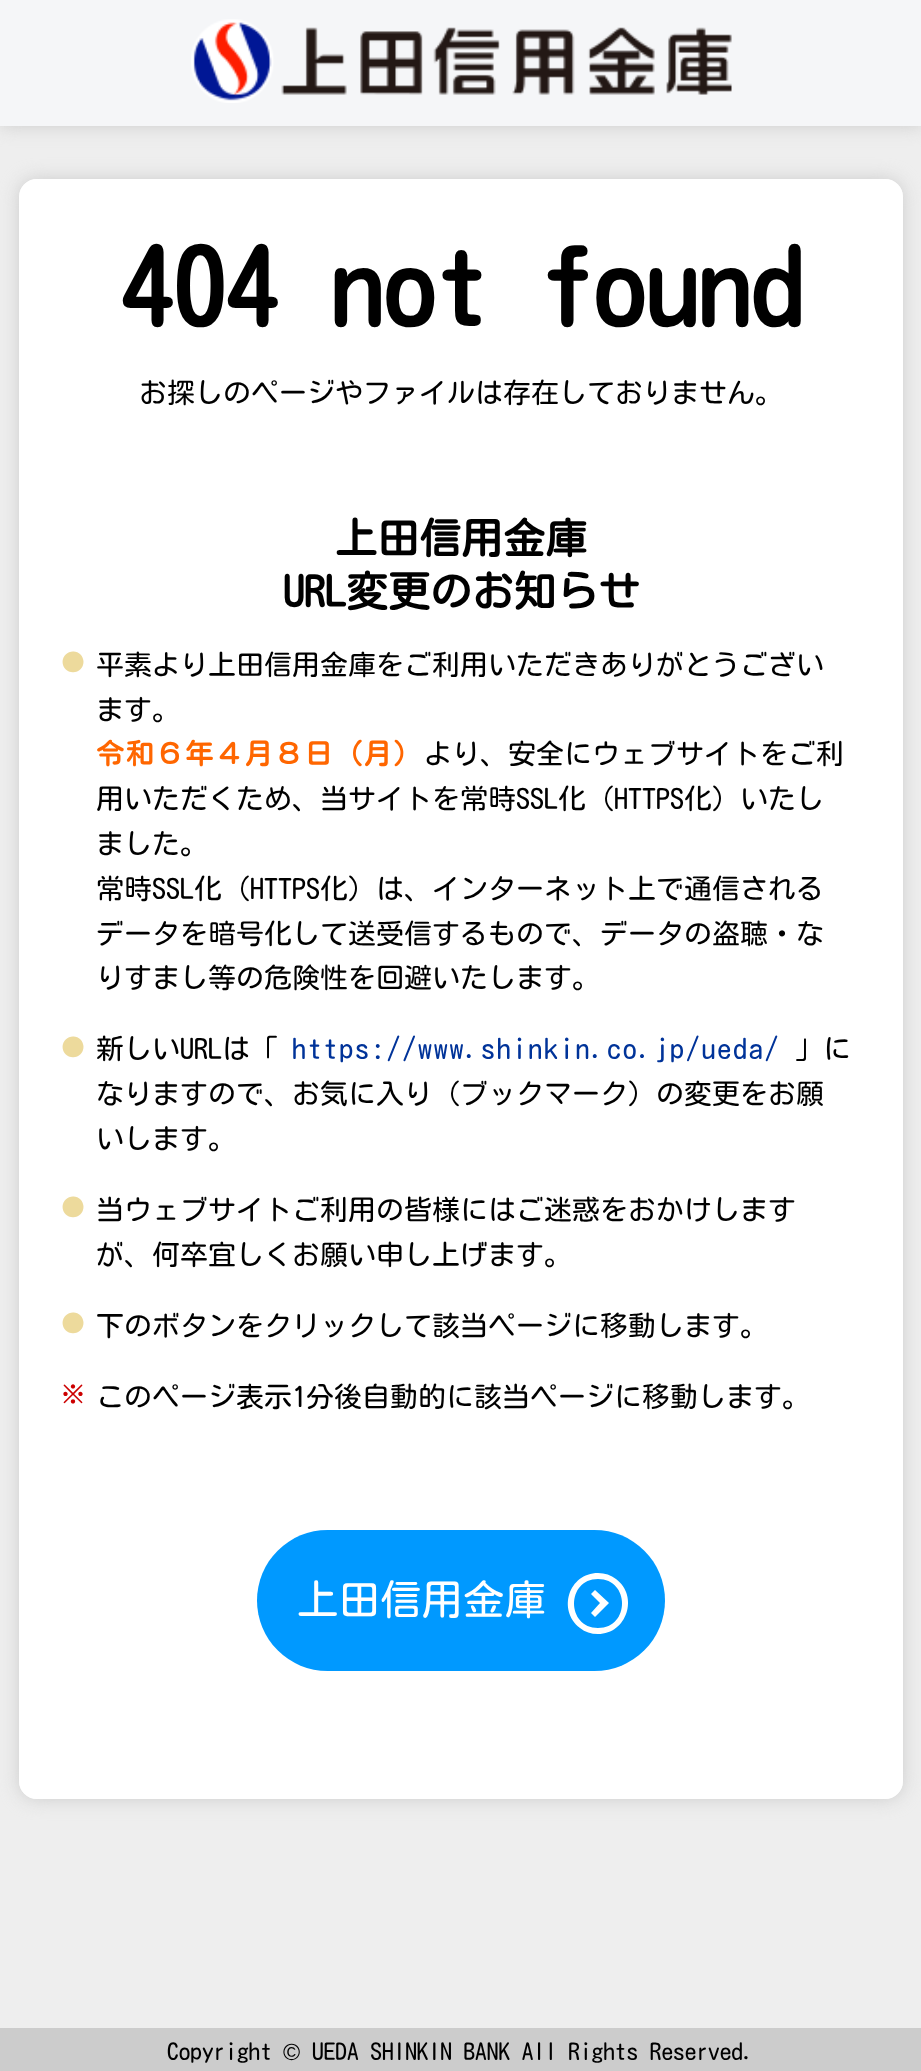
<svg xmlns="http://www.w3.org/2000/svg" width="921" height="2071">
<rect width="100%" height="100%" fill="#eee"/>
<rect width="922" height="126" fill="#ccc" filter="blur(9px)"/>
<rect width="921" height="126" fill="#f5f6f8"/>
<image x="191" y="19" width="541" height="84" href="media/1.png"/>
<rect x="19" y="179" width="884" height="1620" rx="18" fill="#ccc" filter="blur(9px)"/>
<rect x="19" y="179" width="884" height="1620" rx="18" fill="#fff"/>
<rect x="23.5" y="183.5" width="875" height="1611" rx="13.5" fill="none" stroke="#ffffffb3" stroke-width="9"/>
<text x="120" y="327" style="font-family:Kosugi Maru;font-size:105px;font-weight:bold;fill:#000">404 not found</text>
<text x="139" y="403" style="font-family:Kosugi Maru;font-size:28px;fill:#000">お探しのページやファイルは存在しておりません。</text>
<text x="335" y="554" style="font-family:Kosugi Maru;font-size:42px;font-weight:bold;fill:#000">上田信用金庫</text>
<text x="283" y="607" style="font-family:Kosugi Maru;font-size:42px;font-weight:bold;fill:#000">URL変更のお知らせ</text>
<text x="61" y="671" style="font-family:Kosugi Maru;font-size:24px;fill:#edda9c">●</text>
<text x="96" y="675" style="font-family:Kosugi Maru;font-size:28px;fill:#000">平素より上田信用金庫をご利用いただきありがとうござい</text>
<text x="96" y="720" style="font-family:Kosugi Maru;font-size:28px;fill:#000">ます。</text>
<text x="96" y="764" style="font-family:Kosugi Maru;font-size:28px;font-weight:bold;letter-spacing:1.75px;fill:#f60">令和６年４月８日（月）</text>
<text x="424" y="764" style="font-family:Kosugi Maru;font-size:28px;fill:#000">より、安全にウェブサイトをご利</text>
<text x="96" y="809" style="font-family:Kosugi Maru;font-size:28px;fill:#000">用いただくため、当サイトを常時SSL化（HTTPS化）いたし</text>
<text x="96" y="854" style="font-family:Kosugi Maru;font-size:28px;fill:#000">ました。</text>
<text x="96" y="899" style="font-family:Kosugi Maru;font-size:28px;fill:#000">常時SSL化（HTTPS化）は、インターネット上で通信される</text>
<text x="96" y="944" style="font-family:Kosugi Maru;font-size:28px;fill:#000">データを暗号化して送受信するもので、データの盗聴・な</text>
<text x="96" y="988" style="font-family:Kosugi Maru;font-size:28px;fill:#000">りすまし等の危険性を回避いたします。</text>
<text x="61" y="1056" style="font-family:Kosugi Maru;font-size:24px;fill:#edda9c">●</text>
<text x="96" y="1059" style="font-family:Kosugi Maru;font-size:28px;fill:#000">新しいURLは「</text>
<text x="292" y="1059" style="font-family:Kosugi Maru;font-size:28px;letter-spacing:1.75px;fill:#039">https://www.shinkin.co.jp/ueda/</text>
<text x="795" y="1059" style="font-family:Kosugi Maru;font-size:28px;fill:#000">」に</text>
<text x="96" y="1104" style="font-family:Kosugi Maru;font-size:28px;fill:#000">なりますので、お気に入り（ブックマーク）の変更をお願</text>
<text x="96" y="1149" style="font-family:Kosugi Maru;font-size:28px;fill:#000">いします。</text>
<text x="61" y="1216" style="font-family:Kosugi Maru;font-size:24px;fill:#edda9c">●</text>
<text x="96" y="1220" style="font-family:Kosugi Maru;font-size:28px;fill:#000">当ウェブサイトご利用の皆様にはご迷惑をおかけします</text>
<text x="96" y="1265" style="font-family:Kosugi Maru;font-size:28px;fill:#000">が、何卒宜しくお願い申し上げます。</text>
<text x="61" y="1332" style="font-family:Kosugi Maru;font-size:24px;fill:#edda9c">●</text>
<text x="96" y="1336" style="font-family:Kosugi Maru;font-size:28px;fill:#000">下のボタンをクリックして該当ページに移動します。</text>
<text x="61" y="1403" style="font-family:Kosugi Maru;font-size:24px;fill:#c00">※</text>
<text x="96" y="1407" style="font-family:Kosugi Maru;font-size:28px;fill:#000">このページ表示1分後自動的に該当ページに移動します。</text>
<rect x="257" y="1530" width="408" height="141" rx="70.5" fill="#09f"/>
<text x="297" y="1615" style="font-family:Kosugi Maru;font-size:41.5px;fill:#fff">上田信用金庫</text>
<path d="M600 1603l-9 10l4 4l14-14l-14-13l-4 4zm-2 31c-7 0-13-2-18-6c-23-18-11-55 18-55c7 0 13 2 18 6c23 17 11 55-18 55zm0-6c32 0 32-49 0-49c-32 0-32 49 0 49zm0-25z" fill="#fff"/>
<rect y="2028" width="921" height="43" fill="#ccc"/>
<text x="167" y="2060" style="font-family:Kosugi Maru;font-size:23.3px;fill:#000">Copyright</text>
<text x="283" y="2060" style="font-family:Liberation Sans;font-size:23.3px;fill:#000">©</text>
<text x="312" y="2060" style="font-family:Kosugi Maru;font-size:23.3px;fill:#000">UEDA SHINKIN BANK All Rights Reserved.</text>
</svg>
